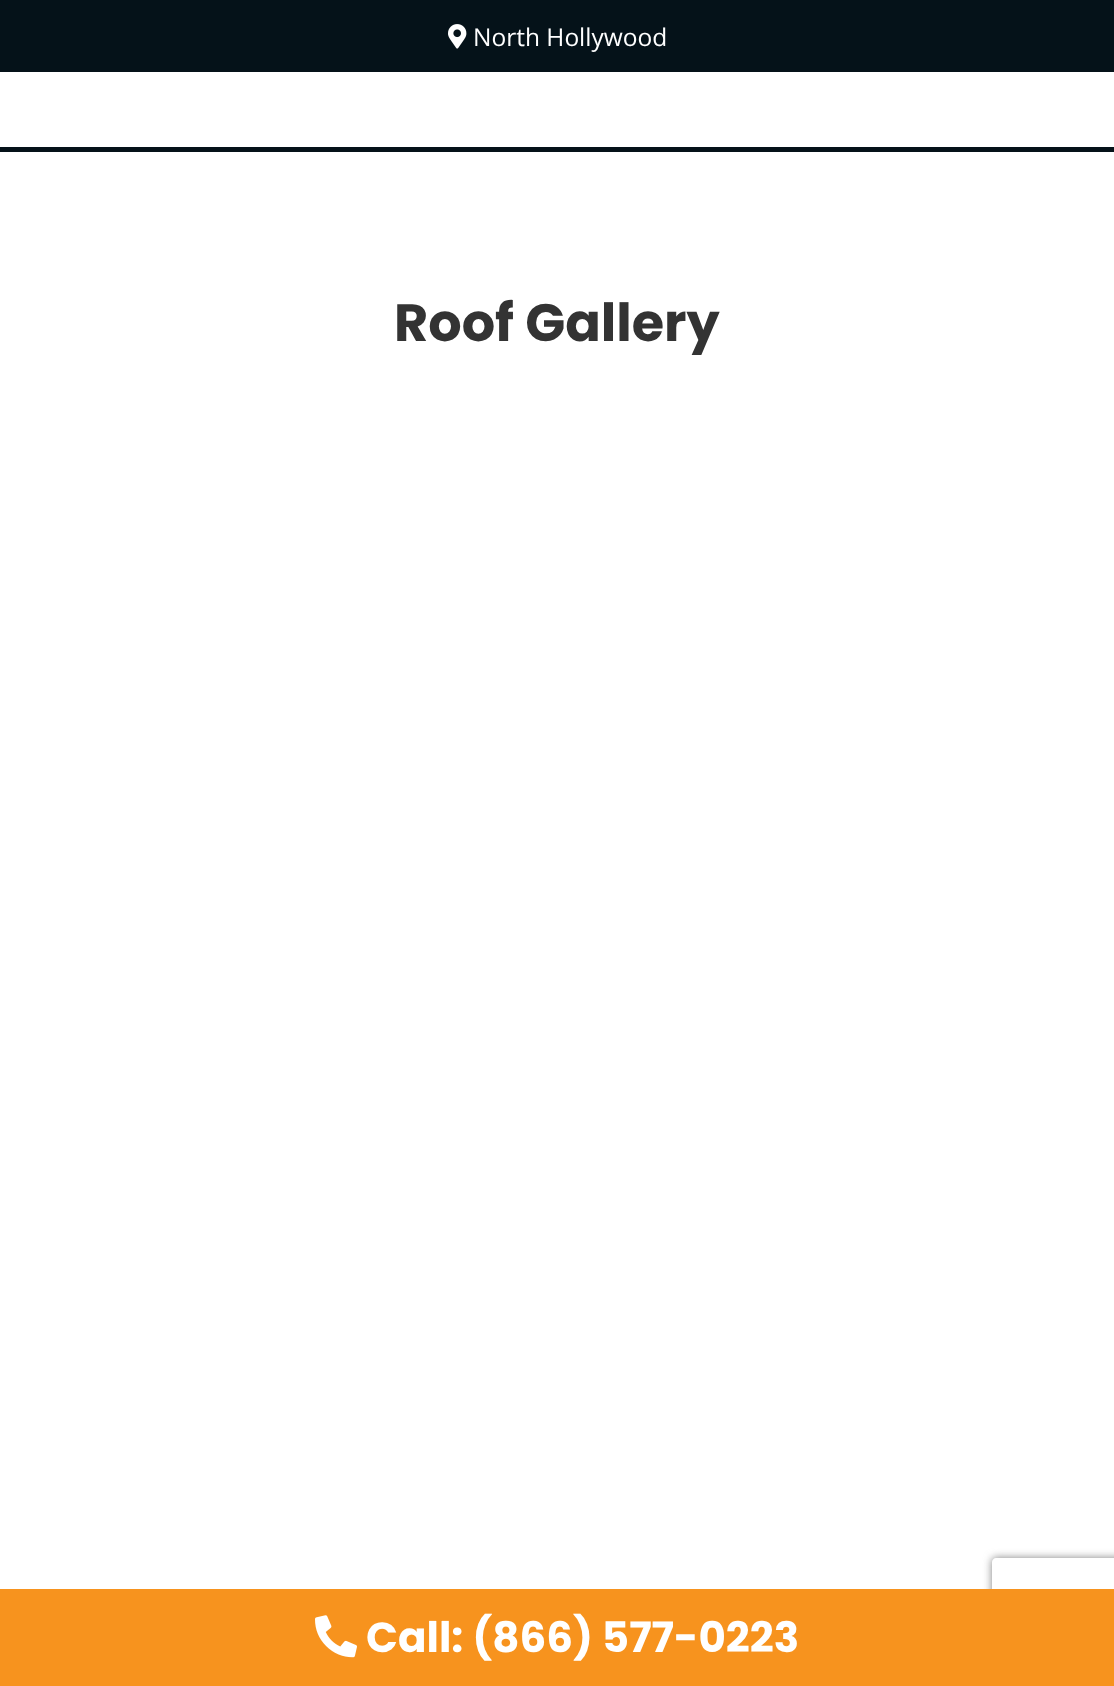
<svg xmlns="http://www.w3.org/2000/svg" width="1114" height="1686">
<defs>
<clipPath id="clip1"><path d="M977 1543h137v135h-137zm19 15h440c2 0 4 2 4 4v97c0 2-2 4-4 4h-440c-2 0-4-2-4-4v-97c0-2 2-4 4-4z" clip-rule="evenodd"/></clipPath>
</defs>
<rect width="100%" height="100%" fill="#fff"/>
<rect width="1114" height="72" fill="#051219"/>
<image x="448" y="24" width="19" height="25" href="media/1.png"/>
<text x="473" y="46" style="font-family:Open Sans;font-size:24.5px;fill:#fff">North Hollywood</text>
<rect y="147" width="1114" height="5" fill="#051219"/>
<text x="394" y="341" style="font-family:Poppins;font-size:52.5px;font-weight:bold;fill:#333">Roof Gallery</text>
<g clip-path="url(#clip1)">
<rect x="992" y="1558" width="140" height="105" rx="4" fill="#808080" filter="blur(4.5px)"/>
</g>
<rect y="1589" width="1114" height="97" fill="#f7931e"/>
<image x="315" y="1615" width="42" height="43" href="media/2.png"/>
<text x="366" y="1652" style="font-family:Poppins;font-size:42px;font-weight:bold;fill:#fff">Call: (866) 577-0223</text>
</svg>
